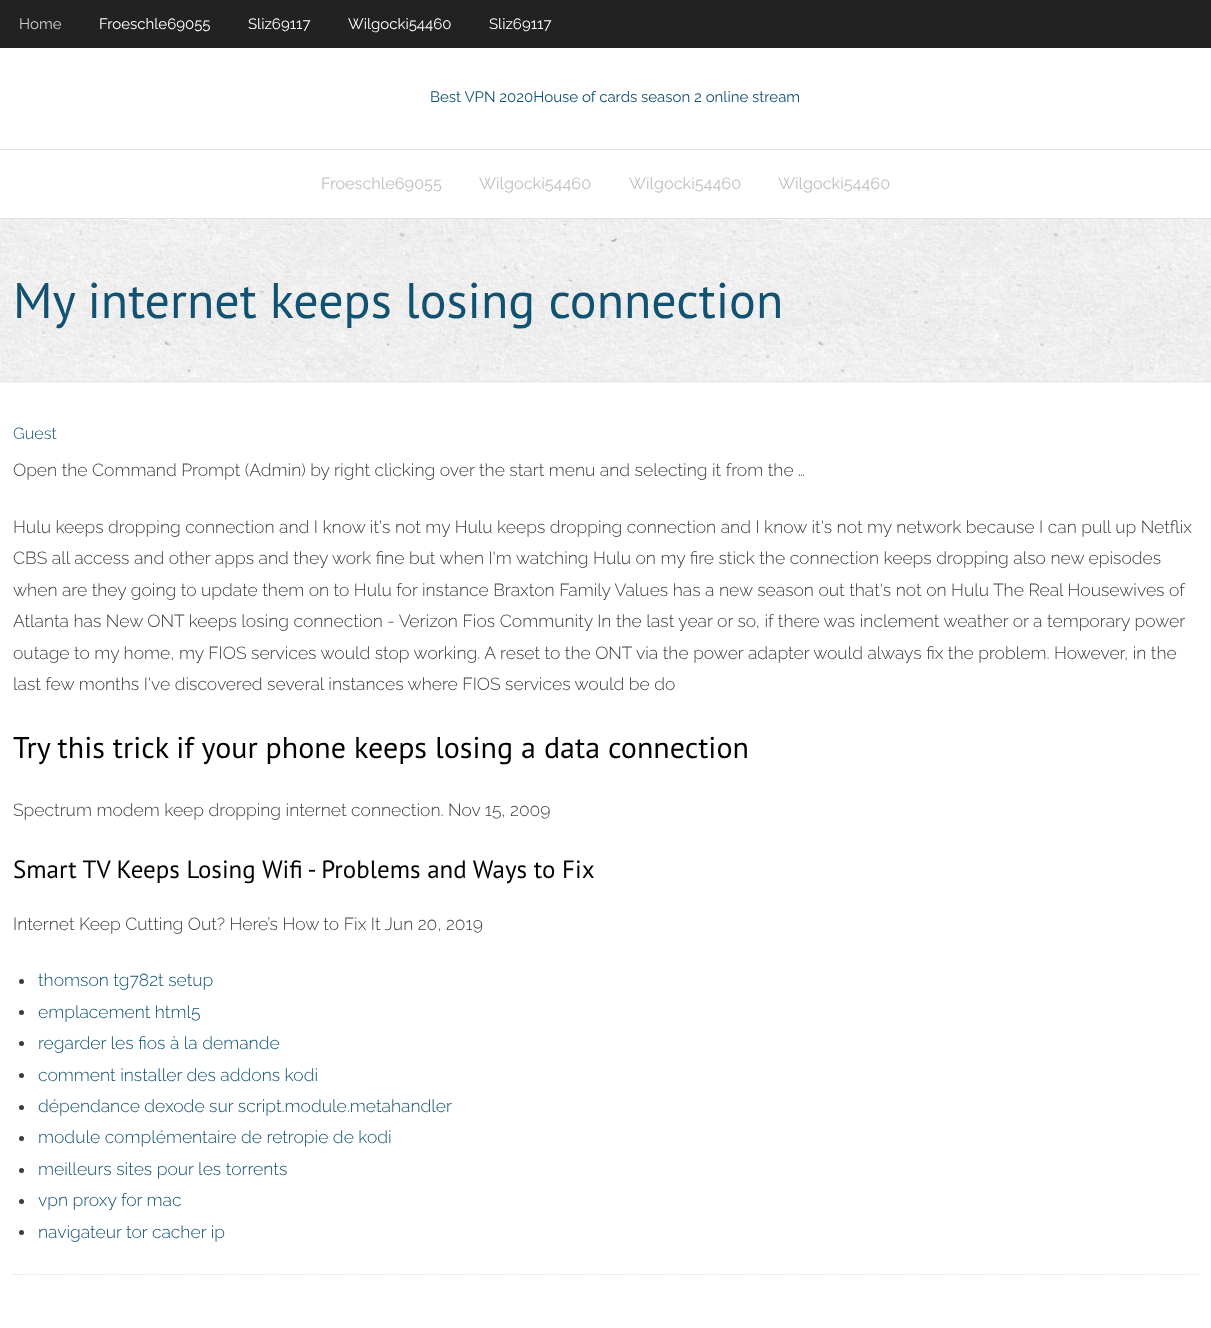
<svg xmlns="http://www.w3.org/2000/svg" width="1211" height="1328">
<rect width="100%" height="100%" fill="#fff"/>
<rect width="1211" height="48" fill="#222"/>
<text x="19" y="29" style="font-family:Raleway;font-size:15px;fill:#ccc">Home</text>
<text x="99" y="29" style="font-family:Raleway;font-size:15px;fill:#fff">Froeschle69055</text>
<text x="248" y="29" style="font-family:Raleway;font-size:15px;fill:#fff">Sliz69117</text>
<text x="348" y="29" style="font-family:Raleway;font-size:15px;fill:#fff">Wilgocki54460</text>
<text x="489" y="29" style="font-family:Raleway;font-size:15px;fill:#fff">Sliz69117</text>
<text x="430" y="102" style="font-family:Raleway;font-size:15px;fill:#115172">Best VPN 2020House of cards season 2 online stream</text>
<rect y="149" width="1211" height="1" fill="#e1e1e1"/>
<rect y="218" width="1211" height="1" fill="#e1e1e1"/>
<text x="321" y="189" style="font-family:Raleway;font-size:16.25px;fill:#bebebe">Froeschle69055</text>
<text x="479" y="189" style="font-family:Raleway;font-size:16.25px;fill:#bebebe">Wilgocki54460</text>
<text x="629" y="189" style="font-family:Raleway;font-size:16.25px;fill:#bebebe">Wilgocki54460</text>
<text x="778" y="189" style="font-family:Raleway;font-size:16.25px;fill:#bebebe">Wilgocki54460</text>
<image x="0" y="219" width="1211" height="164" href="media/1.png"/>
<rect y="381" width="1211" height="1" fill="#e5e5e5"/>
<text x="13" y="318" style="font-family:PT Sans;font-size:50px;fill:#115172">My internet keeps losing connection</text>
<path d="M12.5 1274.5h1186.5" fill="none" stroke="#ddd" stroke-width="1.2" stroke-dasharray="1.25 1.25"/>
<text x="13" y="439" style="font-family:Raleway;font-size:16.25px;font-weight:300;fill:#115172">Guest</text>
<text x="13" y="476" style="font-family:Raleway;font-size:17.5px;font-weight:300;fill:#3d3d3d">Open the Command Prompt (Admin) by right clicking over the start menu and selecting it from the …</text>
<text x="13" y="533" style="font-family:Raleway;font-size:17.5px;font-weight:300;fill:#3d3d3d">Hulu keeps dropping connection and I know it's not my Hulu keeps dropping connection and I know it's not my network because I can pull up Netflix</text>
<text x="13" y="564" style="font-family:Raleway;font-size:17.5px;font-weight:300;fill:#3d3d3d">CBS all access and other apps and they work fine but when I'm watching Hulu on my fire stick the connection keeps dropping also new episodes</text>
<text x="13" y="596" style="font-family:Raleway;font-size:17.5px;font-weight:300;fill:#3d3d3d">when are they going to update them on to Hulu for instance Braxton Family Values has a new season out that's not on Hulu The Real Housewives of</text>
<text x="13" y="627" style="font-family:Raleway;font-size:17.5px;font-weight:300;fill:#3d3d3d">Atlanta has New ONT keeps losing connection - Verizon Fios Community In the last year or so, if there was inclement weather or a temporary power</text>
<text x="13" y="659" style="font-family:Raleway;font-size:17.5px;font-weight:300;fill:#3d3d3d">outage to my home, my FIOS services would stop working. A reset to the ONT via the power adapter would always fix the problem. However, in the</text>
<text x="13" y="690" style="font-family:Raleway;font-size:17.5px;font-weight:300;fill:#3d3d3d">last few months I've discovered several instances where FIOS services would be do</text>
<text x="13" y="758" style="font-family:PT Sans;font-size:30px;fill:#000">Try this trick if your phone keeps losing a data connection</text>
<text x="13" y="816" style="font-family:Raleway;font-size:17.5px;font-weight:300;fill:#3d3d3d">Spectrum modem keep dropping internet connection. Nov 15, 2009</text>
<text x="13" y="878" style="font-family:PT Sans;font-size:25px;fill:#000">Smart TV Keeps Losing Wifi - Problems and Ways to Fix</text>
<text x="13" y="930" style="font-family:Raleway;font-size:17.5px;font-weight:300;fill:#3d3d3d">Internet Keep Cutting Out? Here’s How to Fix It Jun 20, 2019</text>
<circle cx="21.5" cy="981.5" r="2.5" fill="#3d3d3d"/>
<text x="38" y="986" style="font-family:Raleway;font-size:17.5px;font-weight:300;fill:#115172">thomson tg782t setup</text>
<circle cx="21.5" cy="1012.5" r="2.5" fill="#3d3d3d"/>
<text x="38" y="1018" style="font-family:Raleway;font-size:17.5px;font-weight:300;fill:#115172">emplacement html5</text>
<circle cx="21.5" cy="1043.5" r="2.5" fill="#3d3d3d"/>
<text x="38" y="1049" style="font-family:Raleway;font-size:17.5px;font-weight:300;fill:#115172">regarder les fios à la demande</text>
<circle cx="21.5" cy="1075.5" r="2.5" fill="#3d3d3d"/>
<text x="38" y="1081" style="font-family:Raleway;font-size:17.5px;font-weight:300;fill:#115172">comment installer des addons kodi</text>
<circle cx="21.5" cy="1107.5" r="2.5" fill="#3d3d3d"/>
<text x="38" y="1112" style="font-family:Raleway;font-size:17.5px;font-weight:300;fill:#115172">dépendance dexode sur script.module.metahandler</text>
<circle cx="21.5" cy="1138.5" r="2.5" fill="#3d3d3d"/>
<text x="38" y="1143" style="font-family:Raleway;font-size:17.5px;font-weight:300;fill:#115172">module complémentaire de retropie de kodi</text>
<circle cx="21.5" cy="1170.5" r="2.5" fill="#3d3d3d"/>
<text x="38" y="1175" style="font-family:Raleway;font-size:17.5px;font-weight:300;fill:#115172">meilleurs sites pour les torrents</text>
<circle cx="21.5" cy="1201.5" r="2.5" fill="#3d3d3d"/>
<text x="38" y="1206" style="font-family:Raleway;font-size:17.5px;font-weight:300;fill:#115172">vpn proxy for mac</text>
<circle cx="21.5" cy="1232.5" r="2.5" fill="#3d3d3d"/>
<text x="38" y="1238" style="font-family:Raleway;font-size:17.5px;font-weight:300;fill:#115172">navigateur tor cacher ip</text>
</svg>
